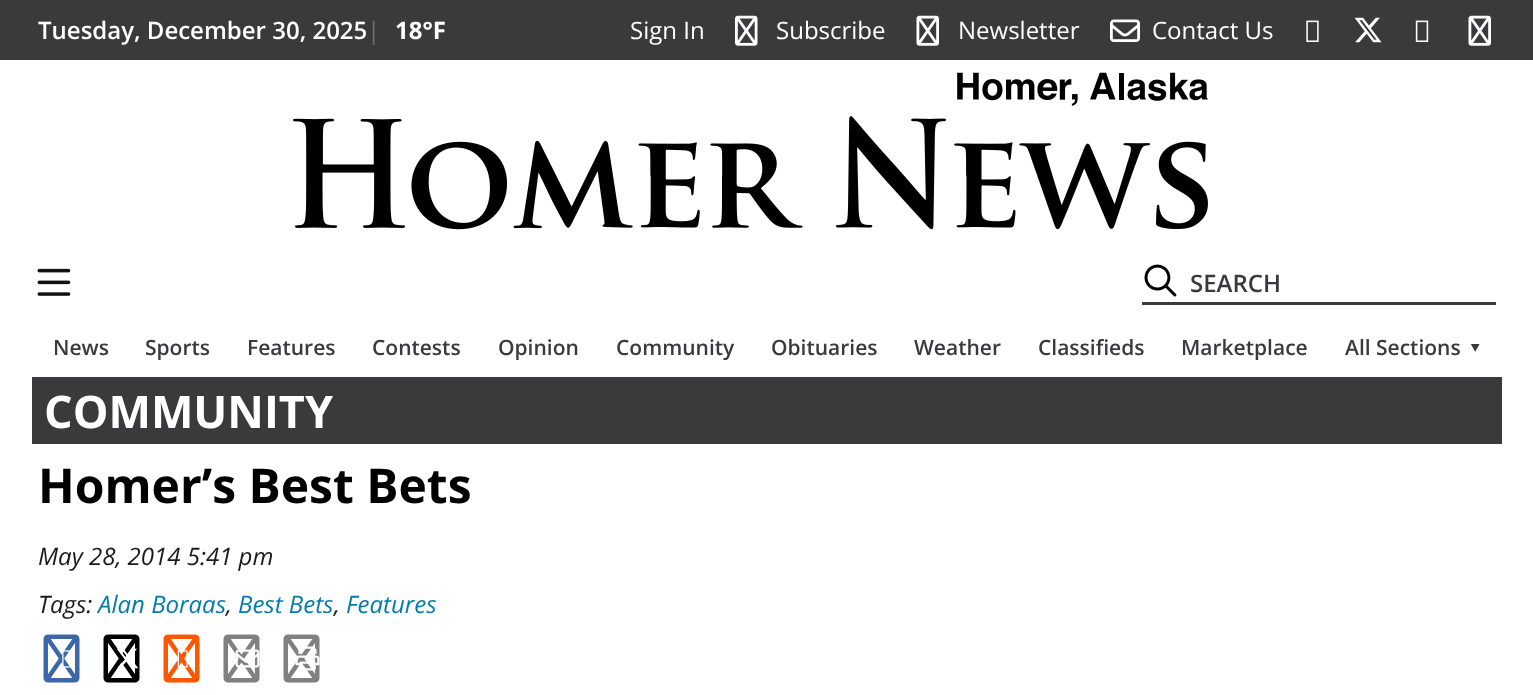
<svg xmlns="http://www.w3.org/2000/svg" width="1533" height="695">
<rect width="100%" height="100%" fill="#fff"/>
<rect width="1533" height="60" fill="#3a3a3c"/>
<text x="38" y="39" style="font-family:Open Sans;font-size:24px;font-weight:600;fill:#fff">Tuesday, December 30, 2025</text>
<text x="367" y="39" style="font-family:Open Sans;font-size:24px;fill:#717171">|</text>
<text x="395" y="39" style="font-family:Open Sans;font-size:24px;font-weight:bold;fill:#fff">18°F</text>
<text x="630" y="39" style="font-family:Open Sans;font-size:24px;fill:#fff">Sign In</text>
<image x="735" y="15" width="23" height="31" href="media/1.png"/>
<text x="776" y="39" style="font-family:Open Sans;font-size:24px;fill:#fff">Subscribe</text>
<image x="916" y="15" width="23" height="31" href="media/2.png"/>
<text x="958" y="39" style="font-family:Open Sans;font-size:24px;fill:#fff">Newsletter</text>
<image x="1110" y="19" width="30" height="23" href="media/3.png"/>
<text x="1152" y="39" style="font-family:Open Sans;font-size:24px;fill:#fff">Contact Us</text>
<image x="1306" y="20" width="13" height="22" href="media/4.png"/>
<image x="1354" y="17" width="28" height="26" href="media/5.png"/>
<image x="1415" y="20" width="14" height="22" href="media/6.png"/>
<image x="1468" y="15" width="23" height="31" href="media/2.png"/>
<image x="293" y="72" width="915" height="158" href="media/7.png"/>
<image x="37" y="268" width="34" height="28" href="media/8.png"/>
<image x="1144" y="264" width="33" height="33" href="media/9.png"/>
<rect x="1142" y="302" width="354" height="3" fill="#3a3a3c"/>
<text x="1190" y="292" style="font-family:Open Sans;font-size:24px;font-weight:600;fill:#3a3a3c">SEARCH</text>
<text x="53" y="355" style="font-family:Open Sans;font-size:21px;font-weight:600;fill:#3a3a3c">News</text>
<text x="145" y="355" style="font-family:Open Sans;font-size:21px;font-weight:600;fill:#3a3a3c">Sports</text>
<text x="247" y="355" style="font-family:Open Sans;font-size:21px;font-weight:600;fill:#3a3a3c">Features</text>
<text x="372" y="355" style="font-family:Open Sans;font-size:21px;font-weight:600;fill:#3a3a3c">Contests</text>
<text x="498" y="355" style="font-family:Open Sans;font-size:21px;font-weight:600;fill:#3a3a3c">Opinion</text>
<text x="616" y="355" style="font-family:Open Sans;font-size:21px;font-weight:600;fill:#3a3a3c">Community</text>
<text x="771" y="355" style="font-family:Open Sans;font-size:21px;font-weight:600;fill:#3a3a3c">Obituaries</text>
<text x="914" y="355" style="font-family:Open Sans;font-size:21px;font-weight:600;fill:#3a3a3c">Weather</text>
<text x="1038" y="355" style="font-family:Open Sans;font-size:21px;font-weight:600;fill:#3a3a3c">Classifieds</text>
<text x="1181" y="355" style="font-family:Open Sans;font-size:21px;font-weight:600;fill:#3a3a3c">Marketplace</text>
<text x="1345" y="355" style="font-family:Open Sans;font-size:21px;font-weight:600;fill:#3a3a3c">All Sections</text>
<text x="1464" y="342" transform="rotate(90 1464 342)" style="font-family:Noto Sans;font-size:30px;fill:#3a3a3c">‣</text>
<rect x="32" y="377" width="1470" height="67" fill="#3a3a3c"/>
<text x="44" y="428" style="font-family:Open Sans;font-size:45px;font-weight:bold;fill:#fff">COMMUNITY</text>
<text x="38" y="503" style="font-family:Open Sans;font-size:48px;font-weight:bold;fill:#000">Homer’s Best Bets</text>
<text x="38" y="565" style="font-family:Open Sans;font-size:24px;font-style:italic;fill:#1a1a1a">May 28, 2014 5:41 pm</text>
<text x="38" y="613" style="font-family:Open Sans;font-size:24px;font-style:italic;fill:#1a1a1a">Tags:</text>
<text x="98" y="613" style="font-family:Open Sans;font-size:24px;font-style:italic;fill:#027caa">Alan Boraas</text>
<text x="226" y="613" style="font-family:Open Sans;font-size:24px;font-style:italic;fill:#1a1a1a">,</text>
<text x="238" y="613" style="font-family:Open Sans;font-size:24px;font-style:italic;fill:#027caa">Best Bets</text>
<text x="334" y="613" style="font-family:Open Sans;font-size:24px;font-style:italic;fill:#1a1a1a">,</text>
<text x="346" y="613" style="font-family:Open Sans;font-size:24px;font-style:italic;fill:#027caa">Features</text>
<image x="43" y="634" width="37" height="49" href="media/10.png"/>
<image x="62" y="650" width="9" height="18" href="media/11.png"/>
<image x="103" y="634" width="37" height="49" href="media/12.png"/>
<image x="116" y="648" width="23" height="21" href="media/13.png"/>
<image x="163" y="634" width="37" height="49" href="media/14.png"/>
<image x="177" y="650" width="11" height="18" href="media/15.png"/>
<image x="223" y="634" width="37" height="49" href="media/16.png"/>
<image x="235" y="649" width="25" height="19" href="media/17.png"/>
<image x="283" y="634" width="37" height="49" href="media/16.png"/>
<image x="295" y="646" width="25" height="25" href="media/18.png"/>
</svg>
